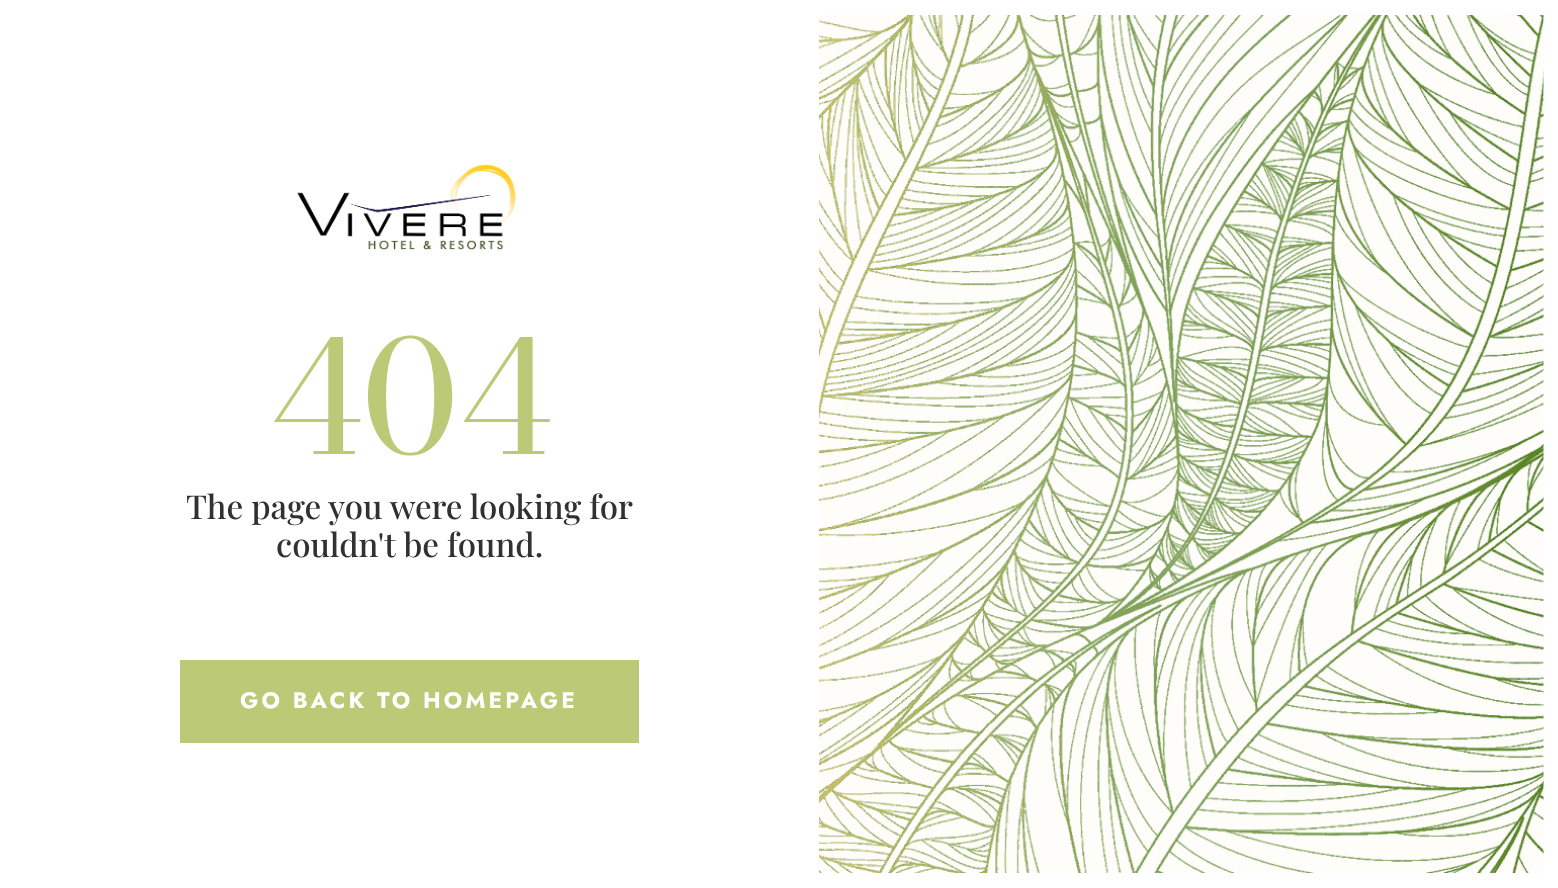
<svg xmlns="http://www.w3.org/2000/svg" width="1558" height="888">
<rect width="100%" height="100%" fill="#fff"/>
<image x="297" y="164" width="219" height="86" href="media/1.png"/>
<text x="269" y="454" style="font-family:Bodoni Moda;font-size:156px;fill:#bcca77">404</text>
<text x="186" y="519" style="font-family:Playfair Display;font-size:33px;font-weight:500;fill:#313131">The page you were looking for</text>
<text x="276" y="557" style="font-family:Playfair Display;font-size:33px;font-weight:500;fill:#313131">couldn't be found.</text>
<rect x="180" y="660" width="459" height="83" fill="#bcca77"/>
<text x="240" y="708" style="font-family:Jost;font-size:22.5px;font-weight:bold;letter-spacing:3.1px;fill:#fff">GO BACK TO HOMEPAGE</text>
<image x="819" y="15" width="725" height="858" href="media/2.png"/>
</svg>
